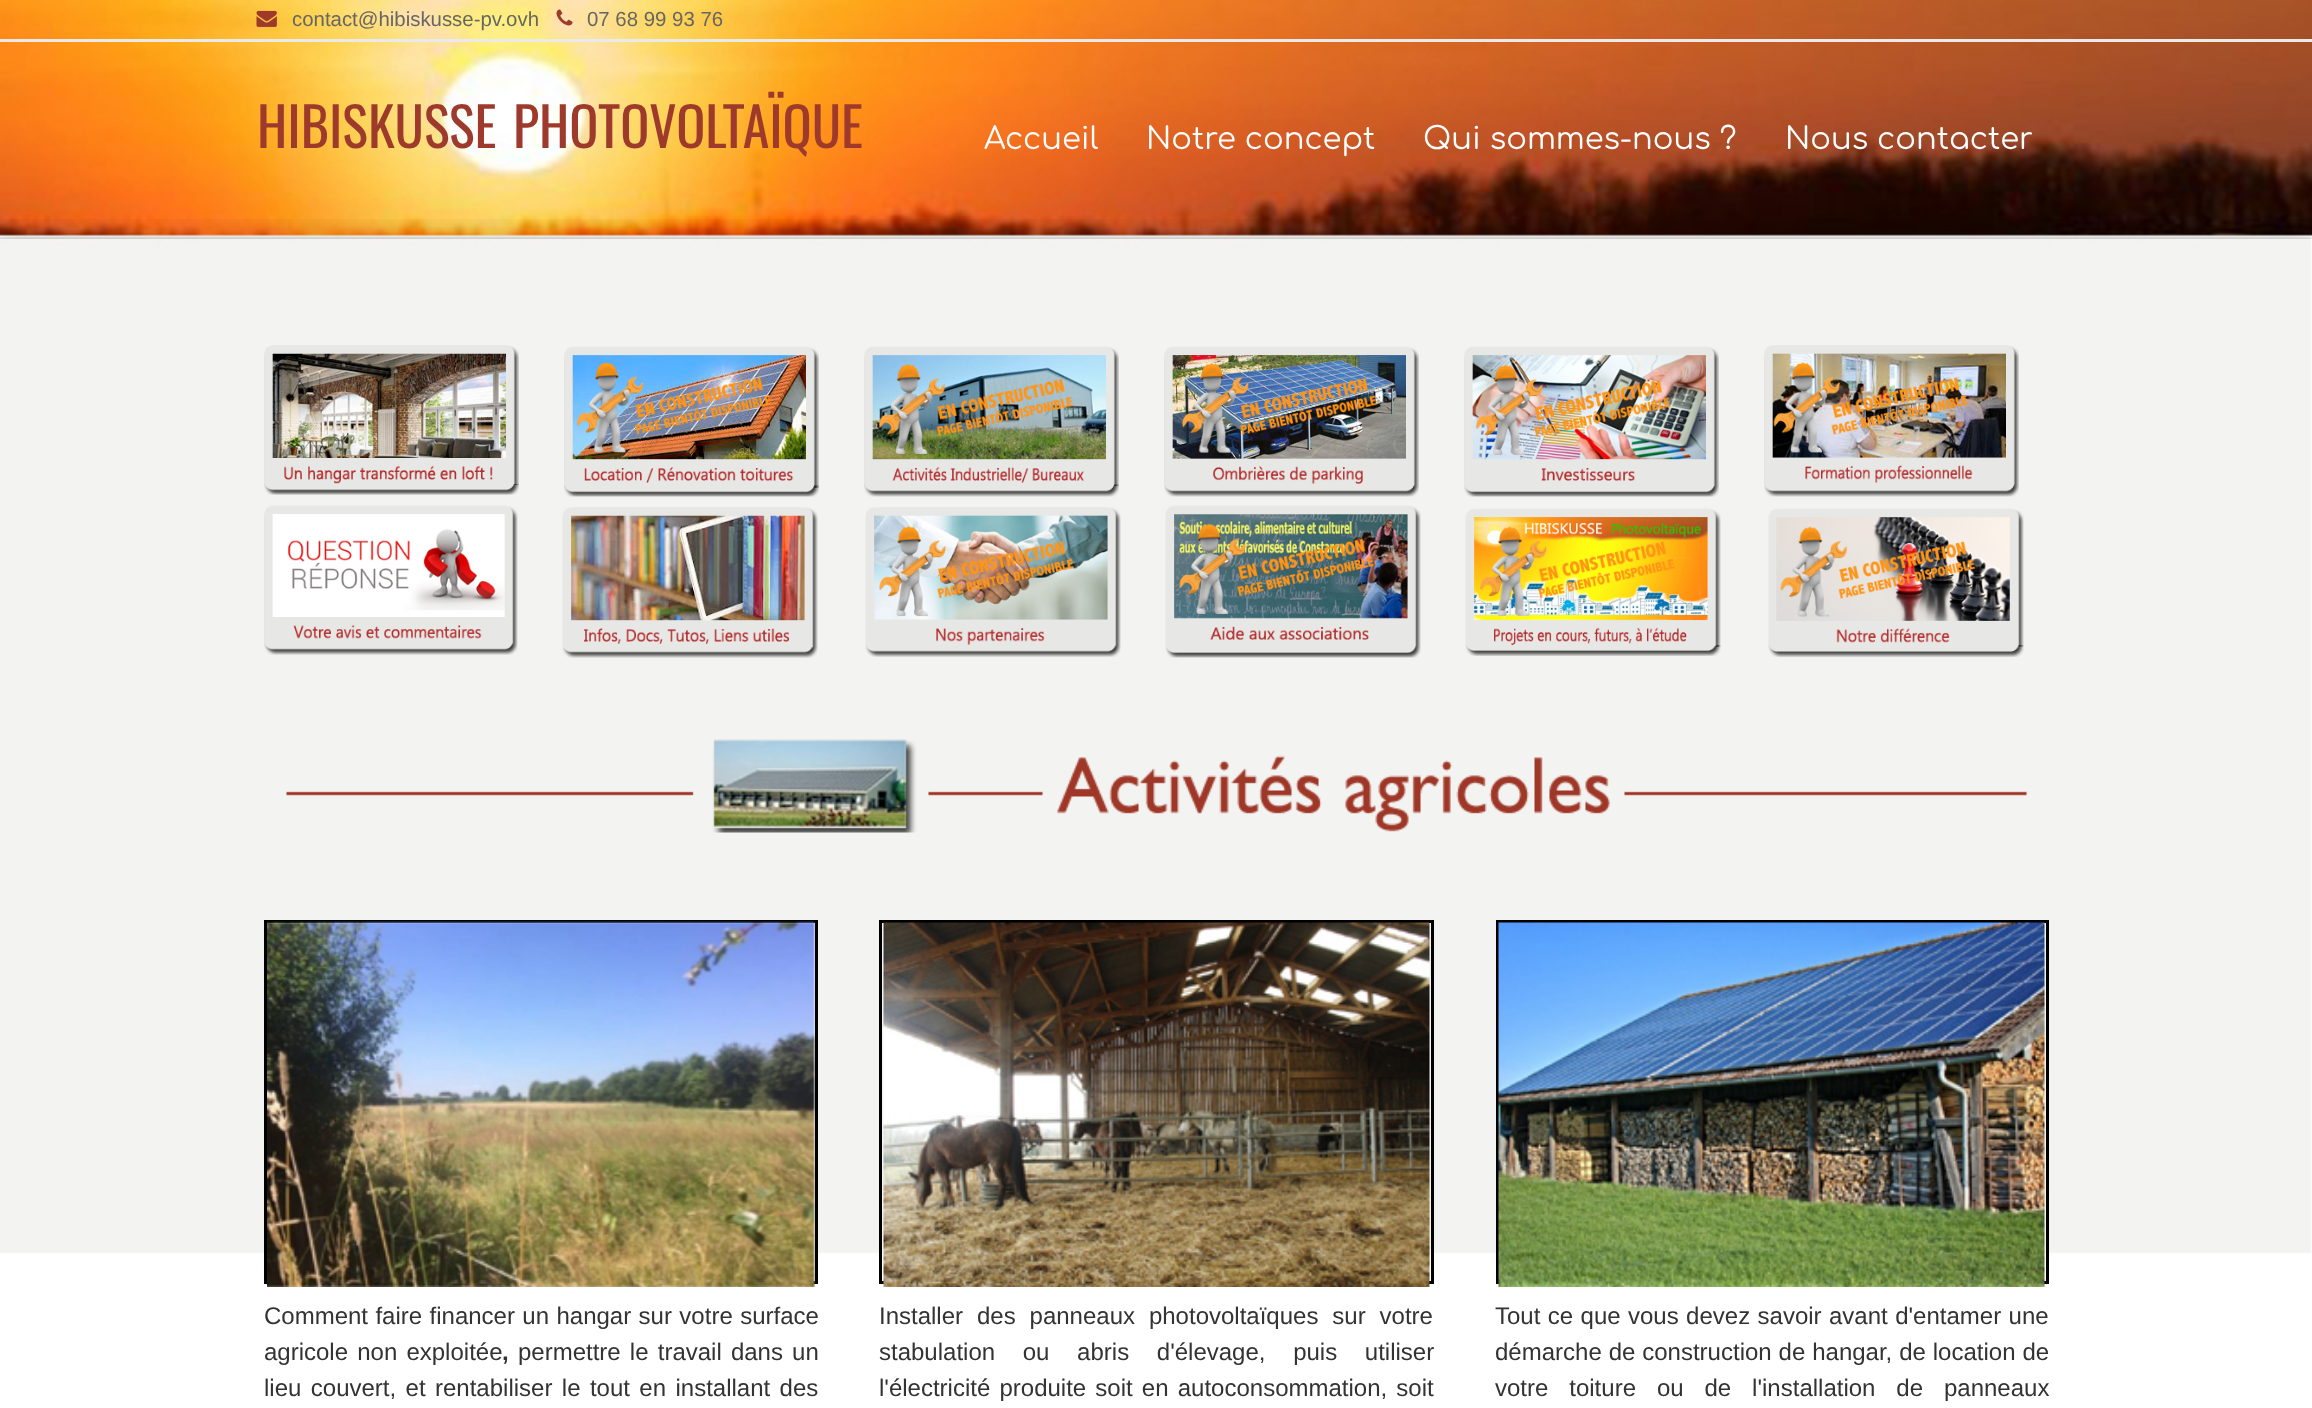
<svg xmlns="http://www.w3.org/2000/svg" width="2312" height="1408">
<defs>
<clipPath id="clip1"><rect x="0" y="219" width="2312" height="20"/></clipPath>
</defs>
<rect width="100%" height="100%" fill="#fff"/>
<image x="0" y="0" width="2312" height="1254" href="media/1.png"/>
<rect y="39" width="2312" height="3" fill="#eaeaea"/>
<image x="256" y="10" width="21" height="17" href="media/2.png"/>
<text x="292" y="26" style="font-family:Liberation Sans;font-size:20.4px;fill:#666">contact@hibiskusse-pv.ovh</text>
<image x="556" y="9" width="17" height="17" href="media/3.png"/>
<text x="587" y="26" style="font-family:Liberation Sans;font-size:20.4px;fill:#666">07 68 99 93 76</text>
<text x="257" y="148" word-spacing="4" style="font-family:Oswald;font-size:54px;fill:#9e3a2c">HIBISKUSSE PHOTOVOLTAÏQUE</text>
<text x="984" y="149" style="font-family:Comfortaa;font-size:30.6px;fill:#fff">Accueil</text>
<text x="1146" y="149" style="font-family:Comfortaa;font-size:30.6px;fill:#fff">Notre concept</text>
<text x="1423" y="149" style="font-family:Comfortaa;font-size:30.6px;fill:#fff">Qui sommes-nous ?</text>
<text x="1785" y="149" style="font-family:Comfortaa;font-size:30.6px;fill:#fff">Nous contacter</text>
<g clip-path="url(#clip1)">
<rect y="228" width="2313" height="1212" fill="#0000001a" filter="blur(10.5px)"/>
</g>
<rect y="239" width="2312" height="1015" fill="#ffffff8c"/>
<image x="264" y="345" width="255" height="150" href="media/4.png"/>
<image x="564" y="346" width="255" height="151" href="media/5.png"/>
<image x="864" y="346" width="255" height="151" href="media/6.png"/>
<image x="1164" y="346" width="255" height="151" href="media/7.png"/>
<image x="1464" y="346" width="255" height="151" href="media/8.png"/>
<image x="1764" y="345" width="255" height="152" href="media/9.png"/>
<image x="264" y="505" width="254" height="150" href="media/10.png"/>
<image x="562" y="507" width="256" height="151" href="media/11.png"/>
<image x="865" y="507" width="256" height="150" href="media/12.png"/>
<image x="1165" y="505" width="256" height="153" href="media/13.png"/>
<image x="1465" y="508" width="256" height="148" href="media/14.png"/>
<image x="1768" y="508" width="256" height="149" href="media/15.png"/>
<image x="286" y="739" width="1741" height="94" href="media/16.png"/>
<rect x="265.5" y="921.5" width="551" height="361" fill="none" stroke="#000" stroke-width="3"/>
<image x="267" y="921" width="548" height="366" href="media/17.png"/>
<text x="264" y="1324" word-spacing="0.75" style="font-family:Liberation Sans;font-size:24px;fill:#333">Comment faire financer un hangar sur votre surface</text>
<text x="264" y="1360" word-spacing="2.5" style="font-family:Liberation Sans;font-size:24px;fill:#333">agricole non exploitée</text>
<text x="502" y="1360" style="font-family:Liberation Sans;font-size:24px;font-weight:bold;fill:#333">,</text>
<text x="518" y="1360" word-spacing="2.5" style="font-family:Liberation Sans;font-size:24px;fill:#333">permettre le travail dans un</text>
<text x="264" y="1396" word-spacing="2.75" style="font-family:Liberation Sans;font-size:24px;fill:#333">lieu couvert, et rentabiliser le tout en installant des</text>
<rect x="880.5" y="921.5" width="552" height="361" fill="none" stroke="#000" stroke-width="3"/>
<image x="883" y="922" width="547" height="365" href="media/18.png"/>
<text x="879" y="1324" word-spacing="7.25" style="font-family:Liberation Sans;font-size:24px;fill:#333">Installer des panneaux photovoltaïques sur votre</text>
<text x="879" y="1360" word-spacing="21" style="font-family:Liberation Sans;font-size:24px;fill:#333">stabulation ou abris d'élevage, puis utiliser</text>
<text x="879" y="1396" word-spacing="2.5" style="font-family:Liberation Sans;font-size:24px;fill:#333">l'électricité produite soit en autoconsommation, soit</text>
<rect x="1497.5" y="921.5" width="550" height="361" fill="none" stroke="#000" stroke-width="3"/>
<image x="1498" y="922" width="547" height="365" href="media/19.png"/>
<text x="1495" y="1324" word-spacing="0.75" style="font-family:Liberation Sans;font-size:24px;fill:#333">Tout ce que vous devez savoir avant d'entamer une</text>
<text x="1495" y="1360" word-spacing="0.25" style="font-family:Liberation Sans;font-size:24px;fill:#333">démarche de construction de hangar, de location de</text>
<text x="1495" y="1396" word-spacing="14.25" style="font-family:Liberation Sans;font-size:24px;fill:#333">votre toiture ou de l'installation de panneaux</text>
</svg>
